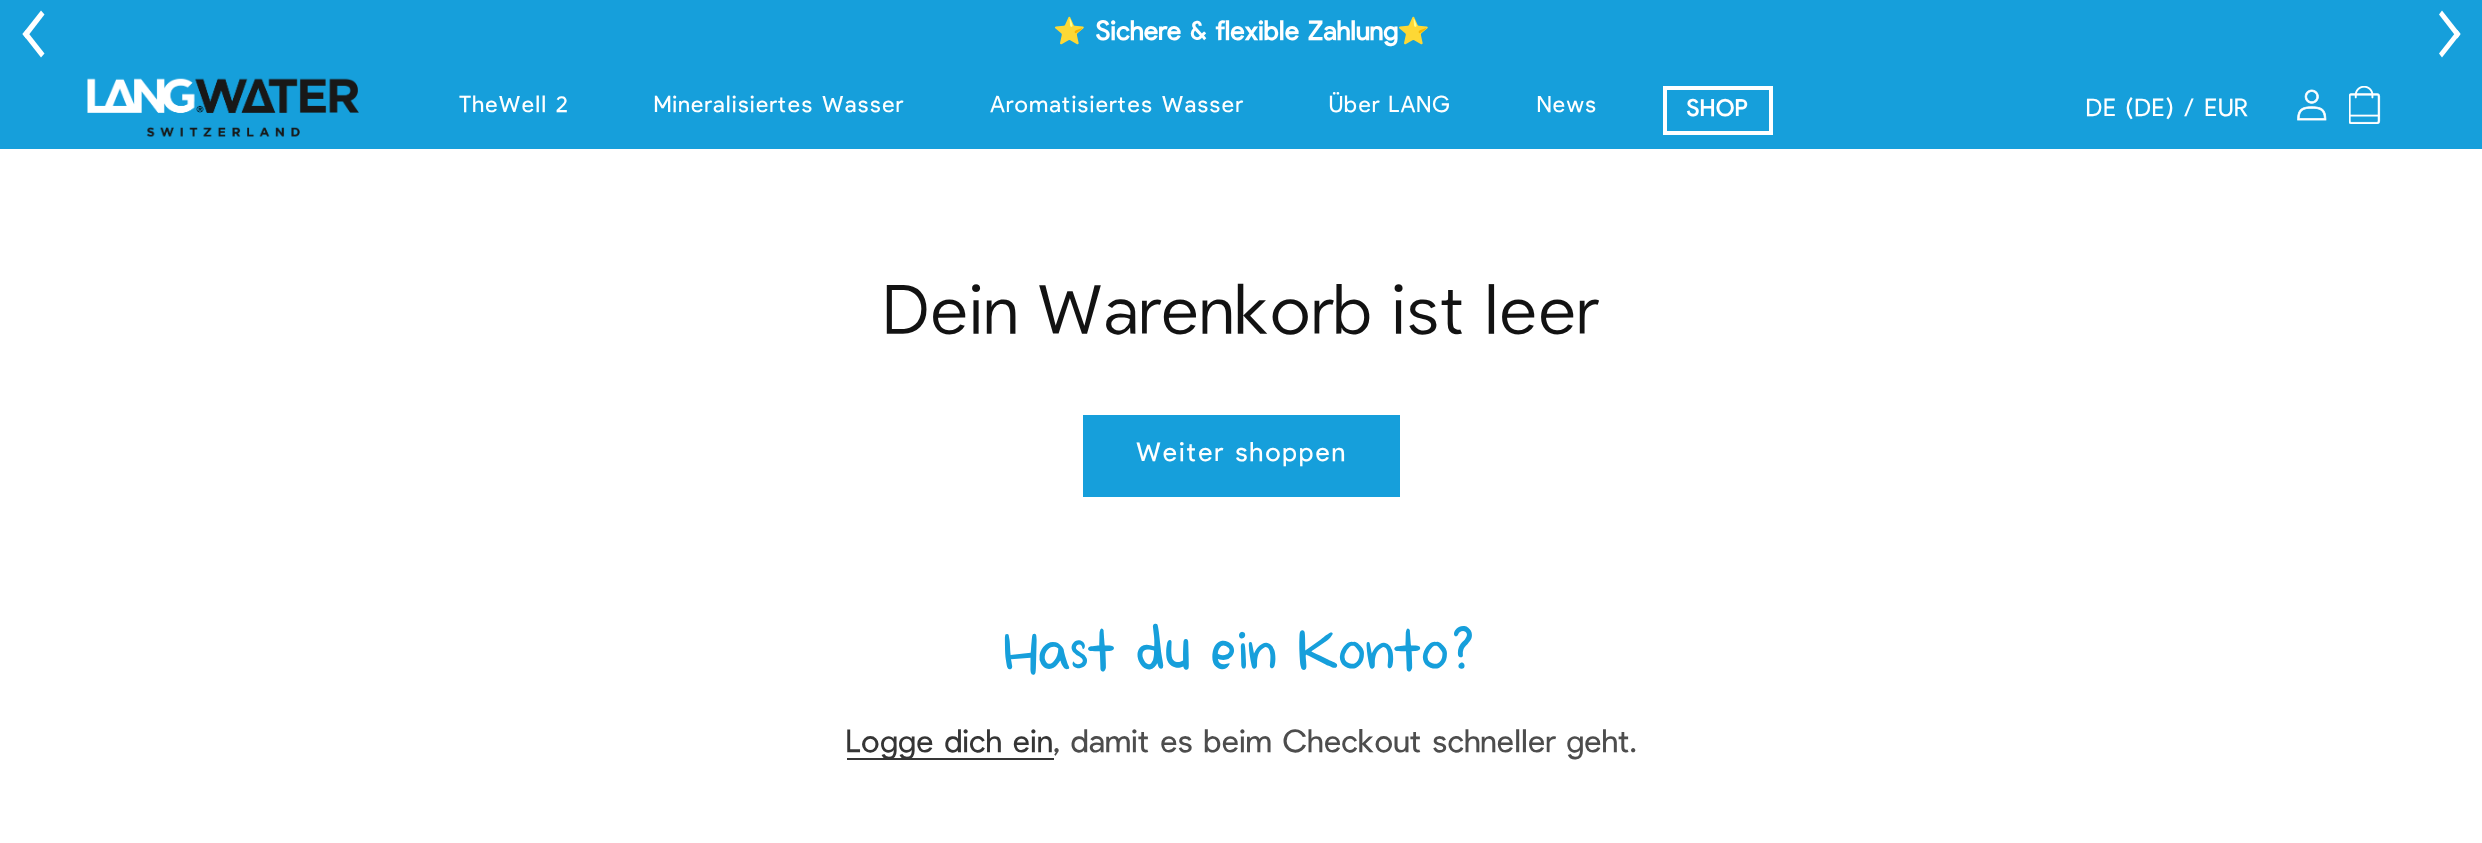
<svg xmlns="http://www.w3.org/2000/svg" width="2482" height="843">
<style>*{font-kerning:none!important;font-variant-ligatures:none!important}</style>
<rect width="100%" height="100%" fill="#fff"/>
<rect width="2482" height="149" fill="#169fdb"/>
<path d="M22.5 34l18.5-23.5l3.5 4l-18.5 24z" fill="#fff"/>
<path d="M22.5 34l3.5-4l18.5 23.5l-3.5 4z" fill="#fff"/>
<text x="1053" y="40" style="font-family:Noto Color Emoji;font-size:26.25px;fill:#fff">⭐</text>
<text x="1095" y="40" style="font-family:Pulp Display;font-size:26.25px;font-weight:bold;fill:#fff">Sichere &amp; flexible Zahlung</text>
<text x="1397" y="40" style="font-family:Noto Color Emoji;font-size:26.25px;fill:#fff">⭐</text>
<path d="M2460.5 34l-18.5 23.5l-3-4l18.5-23.5z" fill="#fff"/>
<path d="M2460.5 34l-3 4.5l-18.5-24l3-4z" fill="#fff"/>
<image x="87" y="78" width="272" height="59" href="media/1.png"/>
<text x="459" y="112" style="font-family:Pulp Display;font-size:22.75px;font-weight:300;letter-spacing:1.05px;fill:#fff">TheWell 2</text>
<text x="654" y="112" style="font-family:Pulp Display;font-size:22.75px;font-weight:300;letter-spacing:1.05px;fill:#fff">Mineralisiertes Wasser</text>
<text x="990" y="112" style="font-family:Pulp Display;font-size:22.75px;font-weight:300;letter-spacing:1.05px;fill:#fff">Aromatisiertes Wasser</text>
<text x="1329" y="112" style="font-family:Pulp Display;font-size:22.75px;font-weight:300;letter-spacing:1.05px;fill:#fff">Über LANG</text>
<text x="1537" y="112" style="font-family:Pulp Display;font-size:22.75px;font-weight:300;letter-spacing:1.05px;fill:#fff">News</text>
<rect x="1665" y="88" width="106" height="45" fill="none" stroke="#fff" stroke-width="4"/>
<text x="1686" y="116" style="font-family:Pulp Display;font-size:22.75px;font-weight:bold;letter-spacing:1.05px;fill:#fff">SHOP</text>
<text x="2086" y="116" style="font-family:Pulp Display;font-size:24.5px;font-weight:300;letter-spacing:1.05px;fill:#fff">DE (DE) / EUR</text>
<image x="2297" y="89" width="30" height="32" href="media/2.png"/>
<image x="2349" y="86" width="32" height="38" href="media/3.png"/>
<text x="884" y="334" style="font-family:Pulp Display;font-size:70px;font-weight:200;letter-spacing:1.05px;fill:#121212">Dein Warenkorb ist leer</text>
<rect x="1083" y="415" width="317" height="82" fill="#169fdb"/>
<text x="1136" y="461" style="font-family:Pulp Display;font-size:26.25px;font-weight:300;letter-spacing:1.75px;fill:#fff">Weiter shoppen</text>
<text x="1005" y="669" style="font-family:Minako;font-size:56px;letter-spacing:1.05px;fill:#169fdb">Hast du ein Konto?</text>
<rect x="847" y="758" width="207" height="2" fill="#363636"/>
<text x="846" y="752" style="font-family:Pulp Display;font-size:31.5px;font-weight:300;fill:#353535">Logge dich ein</text>
<text x="1053" y="752" style="font-family:Pulp Display;font-size:31.5px;font-weight:300;fill:#4d4d4d">, damit es beim Checkout schneller geht.</text>
</svg>
